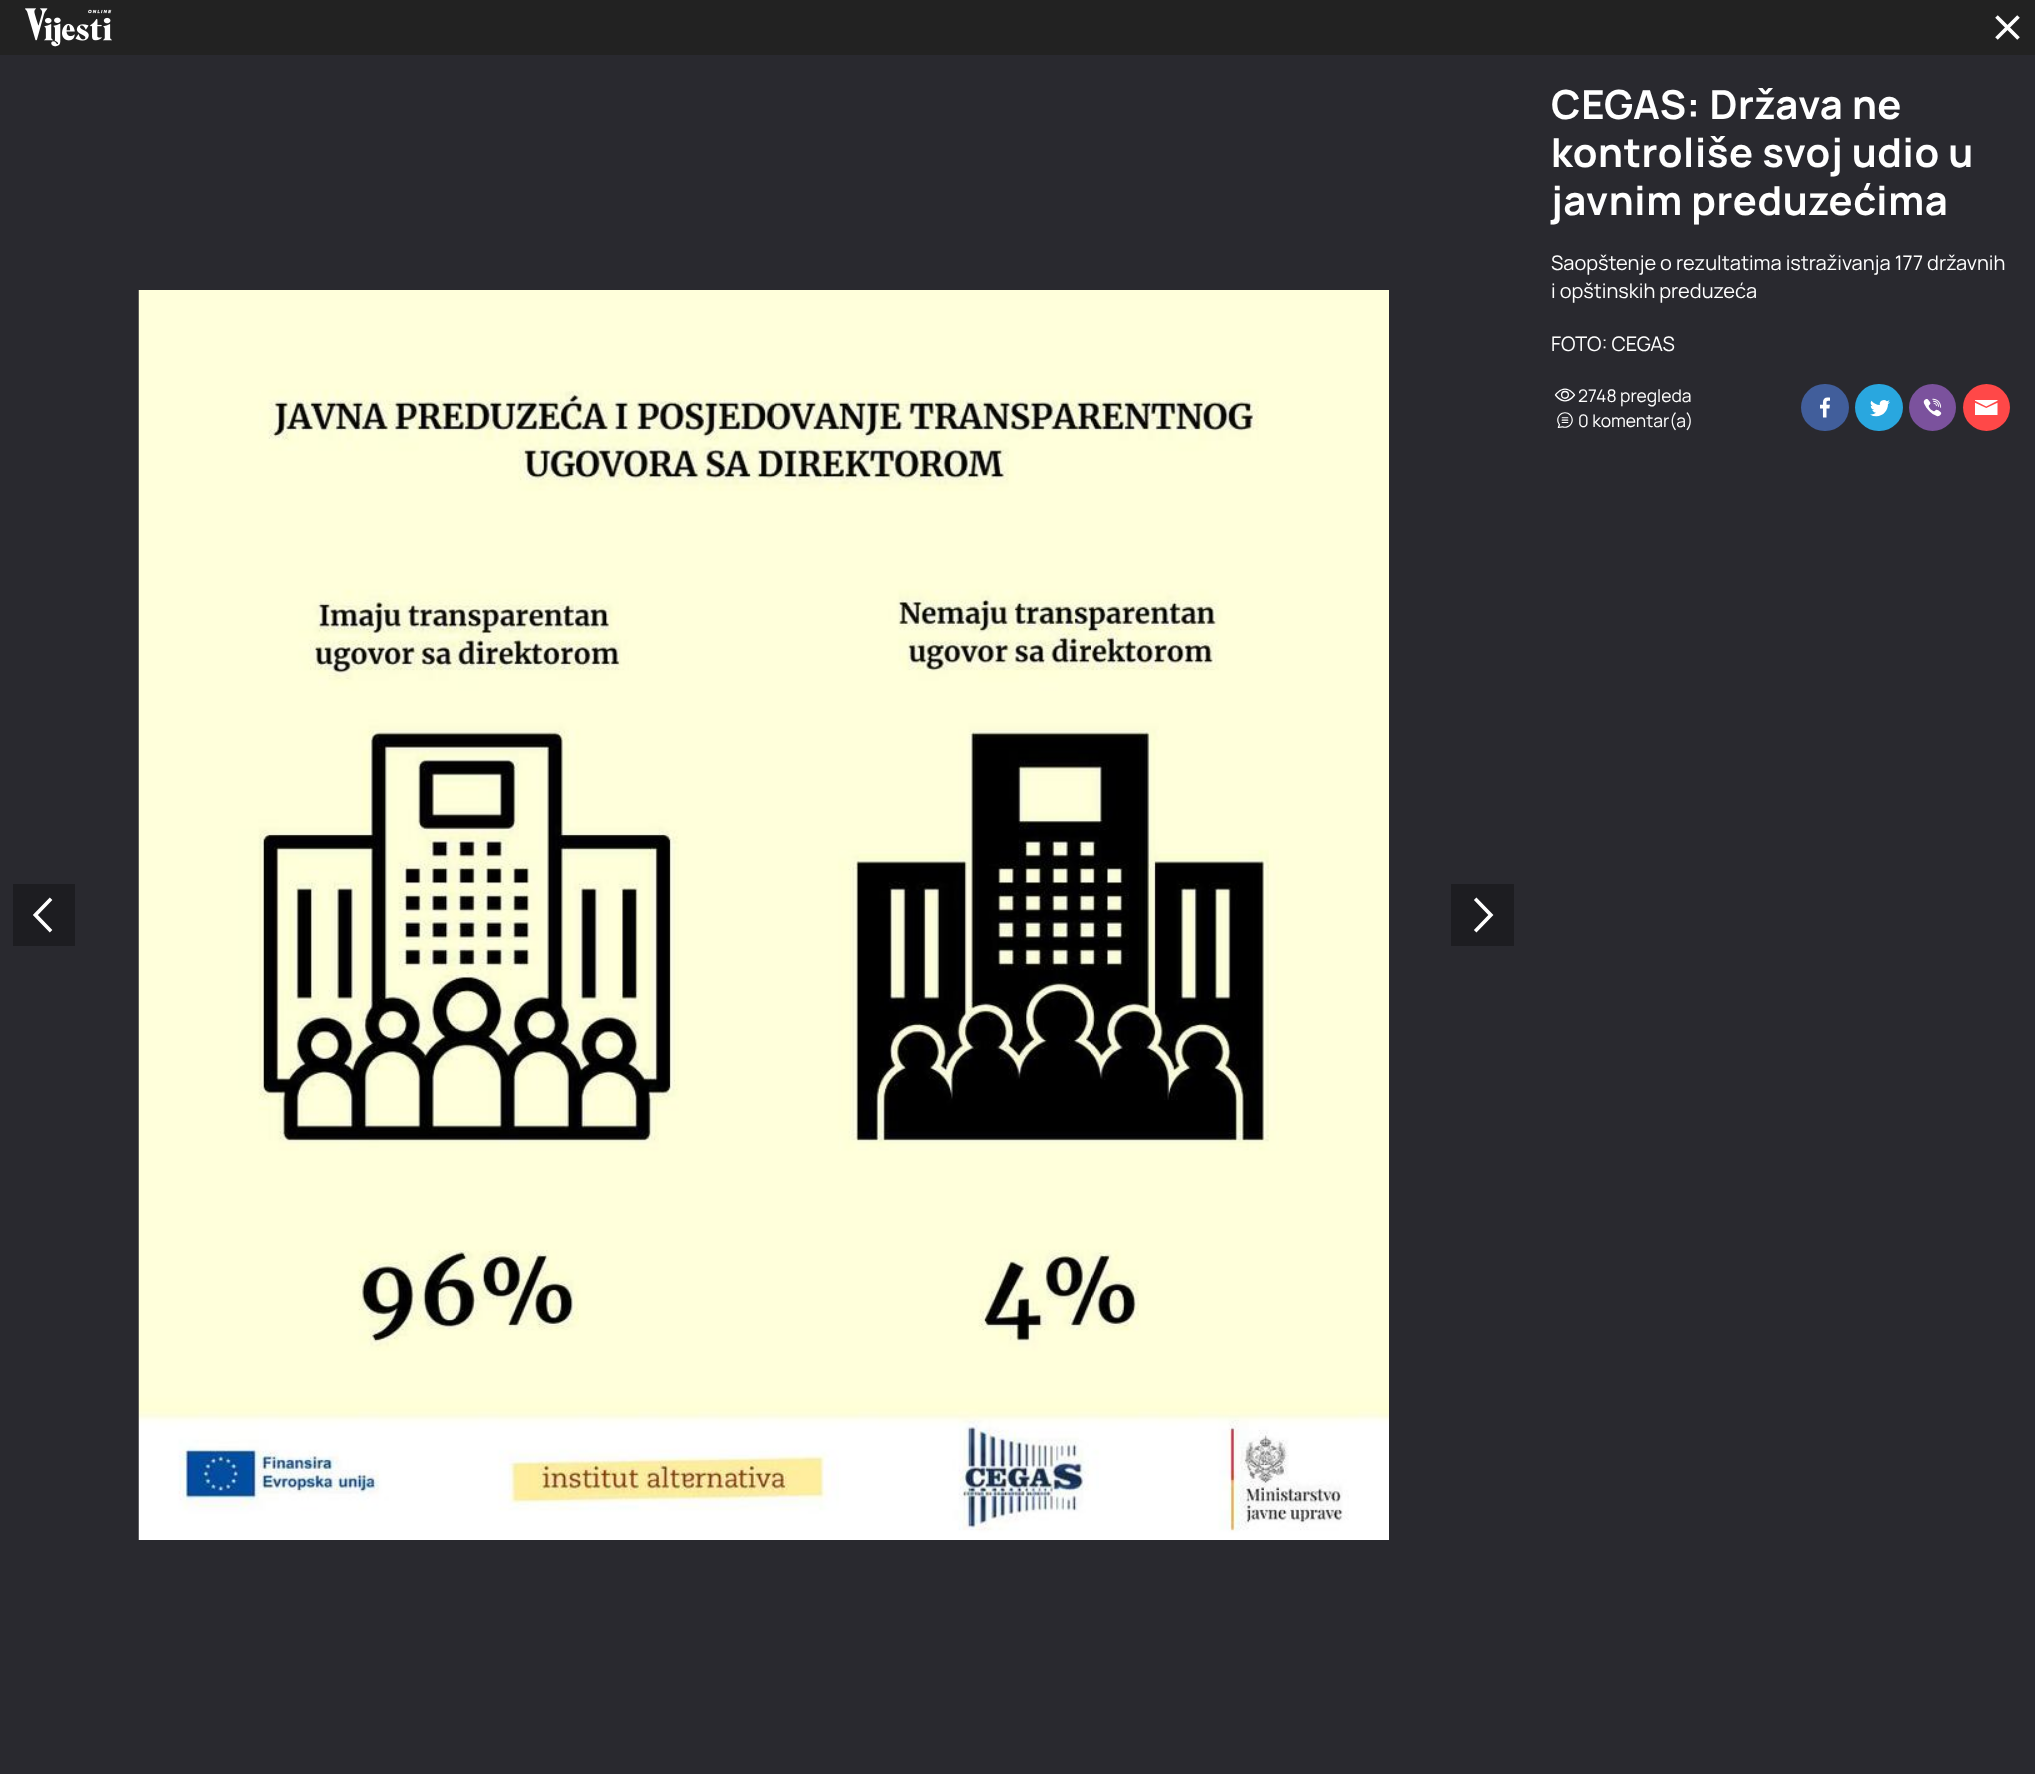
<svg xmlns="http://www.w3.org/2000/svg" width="2035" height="1774">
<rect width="100%" height="100%" fill="#29292f"/>
<rect width="2035" height="55" fill="#222"/>
<image x="25" y="8" width="87" height="39" href="media/1.png"/>
<image x="1995" y="15" width="25" height="25" href="media/2.png"/>
<rect x="13" y="884" width="62" height="62" fill="#1d1d21"/>
<image x="33" y="897" width="20" height="36" href="media/3.png"/>
<image x="138" y="290" width="1251" height="1250" href="media/4.png"/>
<rect x="1451" y="884" width="63" height="62" fill="#1d1d21"/>
<image x="1474" y="897" width="20" height="36" href="media/5.png"/>
<text x="1551" y="119" style="font-family:Manrope;font-size:40px;font-weight:bold;letter-spacing:0.6px;fill:#fff">CEGAS: Država ne</text>
<text x="1551" y="167" style="font-family:Manrope;font-size:40px;font-weight:bold;letter-spacing:0.6px;fill:#fff">kontroliše svoj udio u</text>
<text x="1551" y="215" style="font-family:Manrope;font-size:40px;font-weight:bold;letter-spacing:0.6px;fill:#fff">javnim preduzećima</text>
<text x="1551" y="270" style="font-family:Manrope;font-size:20px;fill:#fff">Saopštenje o rezultatima istraživanja 177 državnih</text>
<text x="1551" y="298" style="font-family:Manrope;font-size:20px;fill:#fff">i opštinskih preduzeća</text>
<text x="1551" y="351" style="font-family:Manrope;font-size:20px;fill:#fff">FOTO: CEGAS</text>
<image x="1554" y="388" width="22" height="14" href="media/6.png"/>
<text x="1578" y="402" style="font-family:Manrope;font-size:17.5px;fill:#fff">2748 pregleda</text>
<image x="1557" y="412" width="16" height="16" href="media/7.png"/>
<text x="1578" y="427" style="font-family:Manrope;font-size:17.5px;fill:#fff">0 komentar(a)</text>
<rect x="1801" y="384" width="48" height="47" rx="23.5" fill="#415e9b"/>
<image x="1820" y="397" width="10" height="21" href="media/8.png"/>
<rect x="1855" y="384" width="48" height="47" rx="23.5" fill="#29a7df"/>
<image x="1870" y="400" width="20" height="17" href="media/9.png"/>
<circle cx="1932.5" cy="407.5" r="23.5" fill="#7b529d"/>
<image x="1923" y="398" width="19" height="19" href="media/10.png"/>
<rect x="1963" y="384" width="47" height="47" rx="23.5" fill="#0000004d" filter="blur(0.5px)"/>
<circle cx="1986.5" cy="407.5" r="23.5" fill="#ff4848"/>
<image x="1975" y="400" width="23" height="15" href="media/11.png"/>
</svg>
